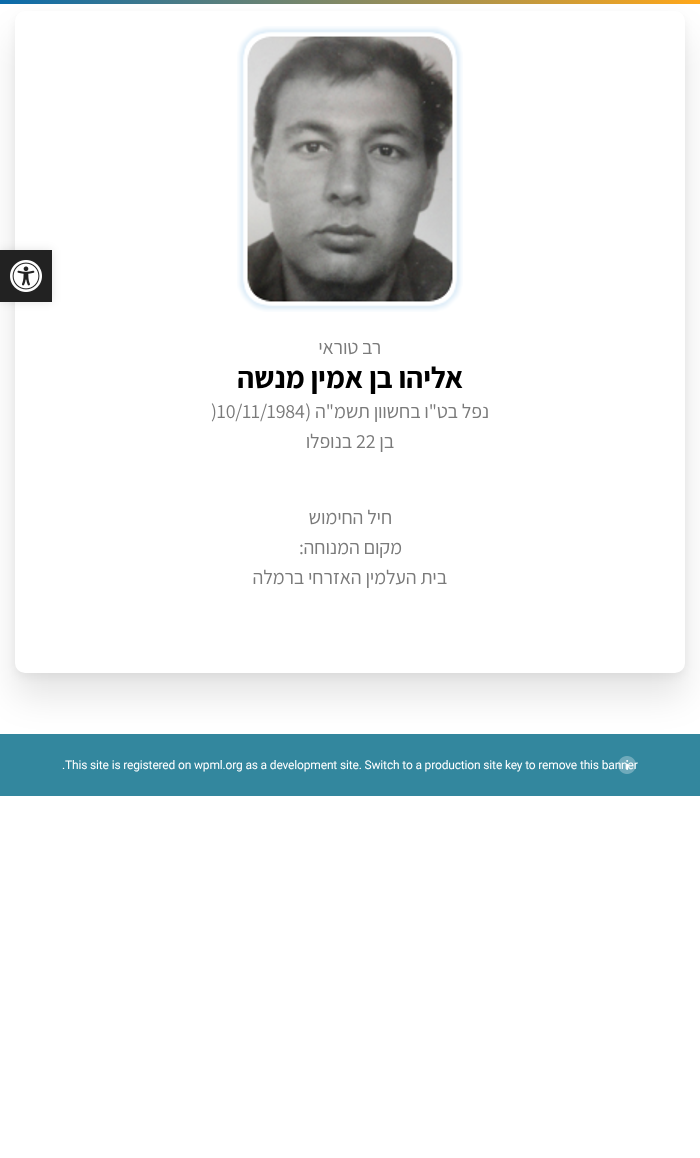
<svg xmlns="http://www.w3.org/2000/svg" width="700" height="1158">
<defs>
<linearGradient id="g1" gradientUnits="userSpaceOnUse" x1="0" y1="2" x2="700" y2="2"><stop offset="0" stop-color="#0a6bab"/><stop offset="1" stop-color="#ffa719"/></linearGradient>
</defs>
<rect width="100%" height="100%" fill="#fff"/>
<rect y="734" width="700" height="62" fill="#33879e"/>
<rect x="15" y="35" width="670" height="662" rx="10" fill="#0000001a" filter="blur(17.5px)"/>
<rect x="15" y="15" width="670" height="662" rx="10" fill="#0000000d" filter="blur(4px)"/>
<rect width="700" height="4" fill="url(#g1)"/>
<rect x="15" y="11" width="670" height="662" rx="10" fill="#fff"/>
<rect y="250" width="52" height="52" fill="#0000001a" filter="blur(5px)"/>
<rect y="250" width="52" height="52" fill="#222"/>
<image x="10" y="260" width="32" height="32" href="media/1.png"/>
<image x="237" y="26" width="226" height="286" href="media/2.png"/>
<text x="381" y="354" style="font-family:Assistant;font-size:20px;letter-spacing:-0.16px;direction:rtl;fill:#7a7a7a">רב טוראי</text>
<text x="463" y="388" style="font-family:Assistant;font-size:30px;font-weight:bold;letter-spacing:-0.16px;direction:rtl;fill:#000">אליהו בן אמין מנשה</text>
<text x="211" y="418" style="font-family:Assistant;font-size:20px;letter-spacing:-0.16px;fill:#7a7a7a">)10/11/1984</text>
<text x="489" y="418" style="font-family:Assistant;font-size:20px;letter-spacing:-0.16px;direction:rtl;fill:#7a7a7a">נפל בט"ו בחשוון תשמ"ה (</text>
<text x="352" y="448" style="font-family:Assistant;font-size:20px;letter-spacing:-0.16px;direction:rtl;fill:#7a7a7a">בנופלו</text>
<text x="356" y="448" style="font-family:Assistant;font-size:20px;letter-spacing:-0.16px;fill:#7a7a7a">22</text>
<text x="394" y="448" style="font-family:Assistant;font-size:20px;letter-spacing:-0.16px;direction:rtl;fill:#7a7a7a">בן</text>
<text x="392" y="524" style="font-family:Assistant;font-size:20px;letter-spacing:-0.16px;direction:rtl;fill:#7a7a7a">חיל החימוש</text>
<text x="402" y="554" style="font-family:Assistant;font-size:20px;letter-spacing:-0.16px;direction:rtl;fill:#7a7a7a">מקום המנוחה:</text>
<text x="447" y="584" style="font-family:Assistant;font-size:20px;letter-spacing:-0.16px;direction:rtl;fill:#7a7a7a">בית העלמין האזרחי ברמלה</text>
<text x="65" y="769" style="font-family:Roboto;font-size:12px;letter-spacing:-0.16px;fill:#fff">This site is registered on wpml.org as a development site. Switch to a production site key to remove this banner</text>
<image x="618" y="756" width="18" height="18" href="media/3.png"/>
<text x="62" y="769" style="font-family:Roboto;font-size:12px;letter-spacing:-0.16px;fill:#fff">.</text>
</svg>
